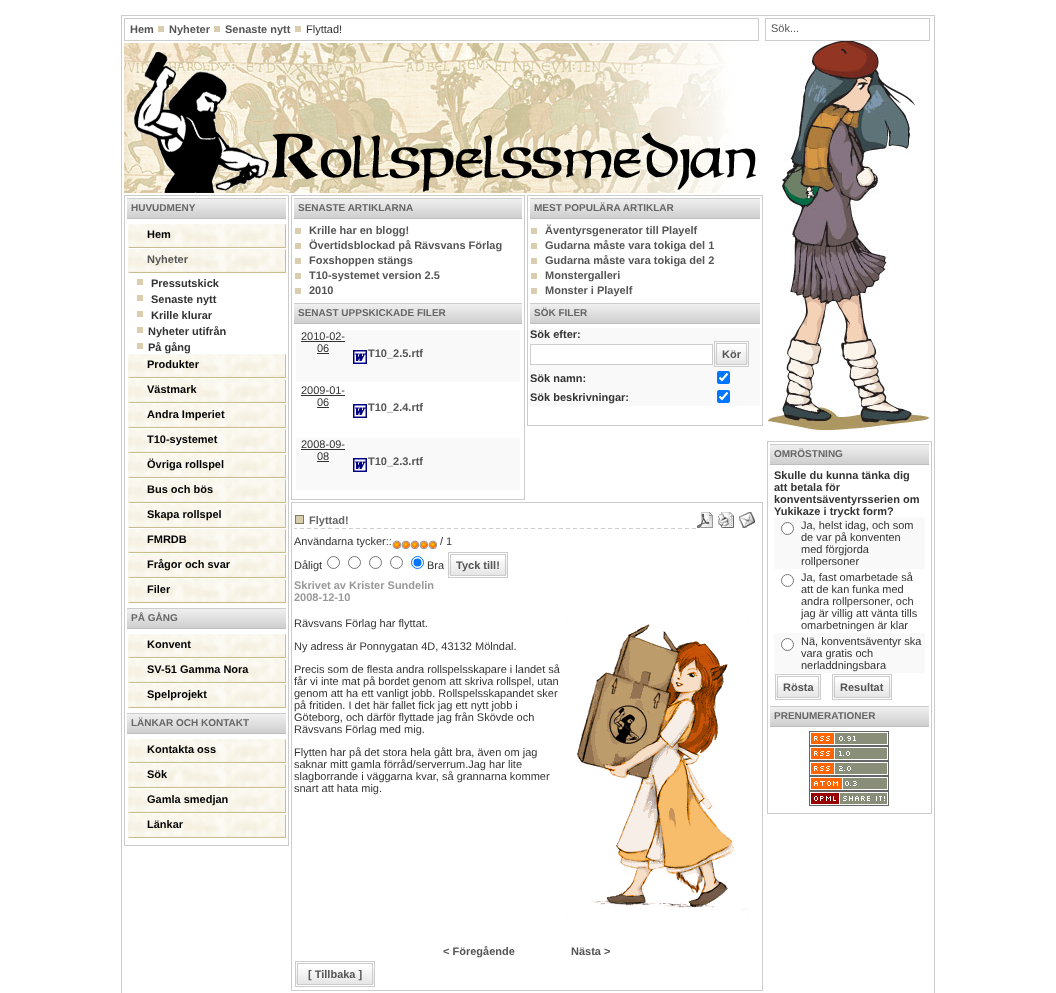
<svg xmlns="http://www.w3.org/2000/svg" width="1056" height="993">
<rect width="100%" height="100%" fill="#fff"/>
<rect x="121.5" y="15.5" width="813" height="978" fill="none" stroke="#ccc"/>
<rect x="124.5" y="18.5" width="634" height="22" fill="none" stroke="#ccc"/>
<text x="130" y="33" style="font-family:Liberation Sans;font-size:11px;font-weight:bold;fill:#555">Hem</text>
<rect x="158" y="26" width="6" height="6" fill="#dacdad"/>
<text x="169" y="33" style="font-family:Liberation Sans;font-size:11px;font-weight:bold;fill:#555">Nyheter</text>
<rect x="214" y="26" width="6" height="6" fill="#dacdad"/>
<text x="225" y="33" style="font-family:Liberation Sans;font-size:11px;font-weight:bold;fill:#555">Senaste nytt</text>
<rect x="295" y="26" width="6" height="6" fill="#dacdad"/>
<text x="306" y="33" style="font-family:Liberation Sans;font-size:11px;fill:#333">Flyttad!</text>
<image x="124" y="43" width="632" height="150" href="media/1.png"/>
<rect x="124.5" y="195.5" width="164" height="650" fill="none" stroke="#ccc"/>
<image x="127" y="198" width="159" height="21" href="media/2.png"/>
<text x="131" y="211" style="font-family:Liberation Sans;font-size:10px;font-weight:bold;fill:#666">HUVUDMENY</text>
<image x="127" y="223" width="159" height="25" href="media/3.png"/>
<text x="147" y="238" style="font-family:Liberation Sans;font-size:11px;font-weight:bold;fill:#000">Hem</text>
<image x="127" y="248" width="159" height="25" href="media/3.png"/>
<text x="147" y="263" style="font-family:Liberation Sans;font-size:11px;font-weight:bold;fill:#555">Nyheter</text>
<rect x="137" y="279" width="6" height="6" fill="#dacdad"/>
<text x="151" y="287" style="font-family:Liberation Sans;font-size:11px;font-weight:bold;fill:#333">Pressutskick</text>
<rect x="137" y="295" width="6" height="6" fill="#dacdad"/>
<text x="151" y="303" style="font-family:Liberation Sans;font-size:11px;font-weight:bold;fill:#333">Senaste nytt</text>
<rect x="137" y="311" width="6" height="6" fill="#dacdad"/>
<text x="151" y="319" style="font-family:Liberation Sans;font-size:11px;font-weight:bold;fill:#333">Krille klurar</text>
<rect x="137" y="327" width="6" height="6" fill="#dacdad"/>
<text x="148" y="335" style="font-family:Liberation Sans;font-size:11px;font-weight:bold;fill:#333">Nyheter utifrån</text>
<rect x="137" y="343" width="6" height="6" fill="#dacdad"/>
<image x="127" y="353" width="159" height="25" href="media/3.png"/>
<text x="148" y="351" style="font-family:Liberation Sans;font-size:11px;font-weight:bold;fill:#333">På gång</text>
<text x="147" y="368" style="font-family:Liberation Sans;font-size:11px;font-weight:bold;fill:#000">Produkter</text>
<image x="127" y="378" width="159" height="25" href="media/3.png"/>
<text x="147" y="393" style="font-family:Liberation Sans;font-size:11px;font-weight:bold;fill:#000">Västmark</text>
<image x="127" y="403" width="159" height="25" href="media/3.png"/>
<text x="147" y="418" style="font-family:Liberation Sans;font-size:11px;font-weight:bold;fill:#000">Andra Imperiet</text>
<image x="127" y="428" width="159" height="25" href="media/3.png"/>
<text x="147" y="443" style="font-family:Liberation Sans;font-size:11px;font-weight:bold;fill:#000">T10-systemet</text>
<image x="127" y="453" width="159" height="25" href="media/3.png"/>
<text x="147" y="468" style="font-family:Liberation Sans;font-size:11px;font-weight:bold;fill:#000">Övriga rollspel</text>
<image x="127" y="478" width="159" height="25" href="media/3.png"/>
<text x="147" y="493" style="font-family:Liberation Sans;font-size:11px;font-weight:bold;fill:#000">Bus och bös</text>
<image x="127" y="503" width="159" height="25" href="media/3.png"/>
<text x="147" y="518" style="font-family:Liberation Sans;font-size:11px;font-weight:bold;fill:#000">Skapa rollspel</text>
<image x="127" y="528" width="159" height="25" href="media/3.png"/>
<text x="147" y="543" style="font-family:Liberation Sans;font-size:11px;font-weight:bold;fill:#000">FMRDB</text>
<image x="127" y="553" width="159" height="25" href="media/3.png"/>
<text x="147" y="568" style="font-family:Liberation Sans;font-size:11px;font-weight:bold;fill:#000">Frågor och svar</text>
<image x="127" y="578" width="159" height="25" href="media/3.png"/>
<text x="147" y="593" style="font-family:Liberation Sans;font-size:11px;font-weight:bold;fill:#000">Filer</text>
<image x="127" y="608" width="159" height="21" href="media/2.png"/>
<text x="131" y="621" style="font-family:Liberation Sans;font-size:10px;font-weight:bold;fill:#666">PÅ GÅNG</text>
<image x="127" y="633" width="159" height="25" href="media/3.png"/>
<text x="147" y="648" style="font-family:Liberation Sans;font-size:11px;font-weight:bold;fill:#000">Konvent</text>
<image x="127" y="658" width="159" height="25" href="media/3.png"/>
<text x="147" y="673" style="font-family:Liberation Sans;font-size:11px;font-weight:bold;fill:#000">SV-51 Gamma Nora</text>
<image x="127" y="683" width="159" height="25" href="media/3.png"/>
<text x="147" y="698" style="font-family:Liberation Sans;font-size:11px;font-weight:bold;fill:#000">Spelprojekt</text>
<image x="127" y="713" width="159" height="21" href="media/2.png"/>
<text x="131" y="726" style="font-family:Liberation Sans;font-size:10px;font-weight:bold;fill:#666">LÄNKAR OCH KONTAKT</text>
<image x="127" y="738" width="159" height="25" href="media/3.png"/>
<text x="147" y="753" style="font-family:Liberation Sans;font-size:11px;font-weight:bold;fill:#000">Kontakta oss</text>
<image x="127" y="763" width="159" height="25" href="media/3.png"/>
<text x="147" y="778" style="font-family:Liberation Sans;font-size:11px;font-weight:bold;fill:#000">Sök</text>
<image x="127" y="788" width="159" height="25" href="media/3.png"/>
<text x="147" y="803" style="font-family:Liberation Sans;font-size:11px;font-weight:bold;fill:#000">Gamla smedjan</text>
<image x="127" y="813" width="159" height="25" href="media/3.png"/>
<text x="147" y="828" style="font-family:Liberation Sans;font-size:11px;font-weight:bold;fill:#000">Länkar</text>
<rect x="291.5" y="195.5" width="233" height="304" fill="none" stroke="#ccc"/>
<image x="294" y="198" width="228" height="21" href="media/4.png"/>
<text x="298" y="211" style="font-family:Liberation Sans;font-size:10px;font-weight:bold;fill:#666">SENASTE ARTIKLARNA</text>
<rect x="295" y="228" width="6" height="6" fill="#dacdad"/>
<text x="309" y="234" style="font-family:Liberation Sans;font-size:11px;font-weight:bold;fill:#555">Krille har en blogg!</text>
<rect x="295" y="243" width="6" height="6" fill="#dacdad"/>
<text x="309" y="249" style="font-family:Liberation Sans;font-size:11px;font-weight:bold;fill:#555">Övertidsblockad på Rävsvans Förlag</text>
<rect x="295" y="258" width="6" height="6" fill="#dacdad"/>
<text x="309" y="264" style="font-family:Liberation Sans;font-size:11px;font-weight:bold;fill:#555">Foxshoppen stängs</text>
<rect x="295" y="273" width="6" height="6" fill="#dacdad"/>
<text x="309" y="279" style="font-family:Liberation Sans;font-size:11px;font-weight:bold;fill:#555">T10-systemet version 2.5</text>
<rect x="295" y="288" width="6" height="6" fill="#dacdad"/>
<text x="309" y="294" style="font-family:Liberation Sans;font-size:11px;font-weight:bold;fill:#555">2010</text>
<image x="294" y="303" width="228" height="21" href="media/4.png"/>
<text x="298" y="316" style="font-family:Liberation Sans;font-size:10px;font-weight:bold;fill:#666">SENAST UPPSKICKADE FILER</text>
<rect x="296" y="330" width="224" height="52" fill="#f9f9f9"/>
<text x="301" y="340" style="font-family:Liberation Sans;font-size:11px;fill:#333">2010-02-</text>
<rect x="301" y="341" width="44" height="1" fill="#333"/>
<text x="317" y="352" style="font-family:Liberation Sans;font-size:11px;fill:#333">06</text>
<rect x="317" y="353" width="12" height="1" fill="#333"/>
<image x="353" y="350" width="14" height="14" href="media/5.png"/>
<text x="368" y="357" style="font-family:Liberation Sans;font-size:11px;font-weight:bold;fill:#555">T10_2.5.rtf</text>
<text x="301" y="394" style="font-family:Liberation Sans;font-size:11px;fill:#333">2009-01-</text>
<rect x="301" y="395" width="44" height="1" fill="#333"/>
<text x="317" y="406" style="font-family:Liberation Sans;font-size:11px;fill:#333">06</text>
<rect x="317" y="407" width="12" height="1" fill="#333"/>
<image x="353" y="404" width="14" height="14" href="media/5.png"/>
<text x="368" y="411" style="font-family:Liberation Sans;font-size:11px;font-weight:bold;fill:#555">T10_2.4.rtf</text>
<rect x="296" y="438" width="224" height="52" fill="#f9f9f9"/>
<text x="301" y="448" style="font-family:Liberation Sans;font-size:11px;fill:#333">2008-09-</text>
<rect x="301" y="449" width="44" height="1" fill="#333"/>
<text x="317" y="460" style="font-family:Liberation Sans;font-size:11px;fill:#333">08</text>
<rect x="317" y="461" width="12" height="1" fill="#333"/>
<image x="353" y="458" width="14" height="14" href="media/5.png"/>
<text x="368" y="465" style="font-family:Liberation Sans;font-size:11px;font-weight:bold;fill:#555">T10_2.3.rtf</text>
<rect x="527.5" y="195.5" width="235" height="230" fill="none" stroke="#ccc"/>
<image x="530" y="198" width="230" height="21" href="media/6.png"/>
<text x="534" y="211" style="font-family:Liberation Sans;font-size:10px;font-weight:bold;fill:#666">MEST POPULÄRA ARTIKLAR</text>
<rect x="531" y="228" width="6" height="6" fill="#dacdad"/>
<text x="545" y="234" style="font-family:Liberation Sans;font-size:11px;font-weight:bold;fill:#555">Äventyrsgenerator till Playelf</text>
<rect x="531" y="243" width="6" height="6" fill="#dacdad"/>
<text x="545" y="249" style="font-family:Liberation Sans;font-size:11px;font-weight:bold;fill:#555">Gudarna måste vara tokiga del 1</text>
<rect x="531" y="258" width="6" height="6" fill="#dacdad"/>
<text x="545" y="264" style="font-family:Liberation Sans;font-size:11px;font-weight:bold;fill:#555">Gudarna måste vara tokiga del 2</text>
<rect x="531" y="273" width="6" height="6" fill="#dacdad"/>
<text x="545" y="279" style="font-family:Liberation Sans;font-size:11px;font-weight:bold;fill:#555">Monstergalleri</text>
<rect x="531" y="288" width="6" height="6" fill="#dacdad"/>
<text x="545" y="294" style="font-family:Liberation Sans;font-size:11px;font-weight:bold;fill:#555">Monster i Playelf</text>
<image x="530" y="303" width="230" height="21" href="media/6.png"/>
<text x="534" y="316" style="font-family:Liberation Sans;font-size:10px;font-weight:bold;fill:#666">SÖK FILER</text>
<rect x="530" y="328" width="230" height="78" fill="#f9f9f9"/>
<text x="530" y="338" style="font-family:Liberation Sans;font-size:11px;font-weight:bold;fill:#333">Sök efter:</text>
<rect x="530.5" y="344.5" width="182" height="20" fill="#fff" stroke="#ccc"/>
<image x="715" y="344" width="33" height="20" href="media/7.png"/>
<rect x="714.5" y="341.5" width="34" height="25" fill="none" stroke="#ccc"/>
<rect x="716.5" y="343.5" width="30" height="21" fill="none" stroke="#ccc"/>
<text x="722" y="358" style="font-family:Liberation Sans;font-size:11px;font-weight:bold;fill:#555">Kör</text>
<text x="530" y="382" style="font-family:Liberation Sans;font-size:11px;font-weight:bold;fill:#333">Sök namn:</text>
<rect x="717" y="371" width="13" height="13" rx="2" fill="#0075ff"/>
<path d="M719.5 377.5l2.5 2.5l5.5-6.5" fill="none" stroke="#fff" stroke-width="2.1"/>
<text x="530" y="401" style="font-family:Liberation Sans;font-size:11px;font-weight:bold;fill:#333">Sök beskrivningar:</text>
<rect x="717" y="390" width="13" height="13" rx="2" fill="#0075ff"/>
<path d="M719.5 396.5l2.5 2.5l5.5-6.5" fill="none" stroke="#fff" stroke-width="2.1"/>
<rect x="291.5" y="502.5" width="471" height="488" fill="none" stroke="#ccc"/>
<image x="294" y="515" width="402" height="14" href="media/8.png"/>
<text x="309" y="524" style="font-family:Liberation Sans;font-size:11px;font-weight:bold;fill:#666">Flyttad!</text>
<image x="697" y="512" width="16" height="16" href="media/9.png"/>
<image x="718" y="512" width="16" height="16" href="media/10.png"/>
<image x="739" y="512" width="16" height="16" href="media/11.png"/>
<text x="294" y="545" style="font-family:Liberation Sans;font-size:11px;fill:#333">Användarna tycker::</text>
<image x="392" y="540" width="9" height="10" href="media/12.png"/>
<image x="401" y="540" width="9" height="10" href="media/12.png"/>
<image x="410" y="540" width="9" height="10" href="media/12.png"/>
<image x="419" y="540" width="9" height="10" href="media/12.png"/>
<image x="428" y="540" width="9" height="10" href="media/12.png"/>
<text x="440" y="545" style="font-family:Liberation Sans;font-size:11px;fill:#333">/ 1</text>
<text x="294" y="569" style="font-family:Liberation Sans;font-size:11px;fill:#333">Dåligt</text>
<circle cx="333.5" cy="562.5" r="6" fill="none" stroke="#767676"/>
<circle cx="354.5" cy="562.5" r="6" fill="none" stroke="#767676"/>
<circle cx="375.5" cy="562.5" r="6" fill="none" stroke="#767676"/>
<circle cx="396.5" cy="562.5" r="6" fill="none" stroke="#767676"/>
<circle cx="417.5" cy="562.5" r="6" fill="none" stroke="#0075ff"/>
<circle cx="417.5" cy="562.5" r="4" fill="#0075ff"/>
<text x="427" y="569" style="font-family:Liberation Sans;font-size:11px;fill:#333">Bra</text>
<image x="449" y="559" width="58" height="16" href="media/13.png"/>
<rect x="448.5" y="552.5" width="59" height="25" fill="none" stroke="#ccc"/>
<rect x="450.5" y="554.5" width="55" height="21" fill="none" stroke="#ccc"/>
<text x="456" y="569" style="font-family:Liberation Sans;font-size:11px;font-weight:bold;fill:#555">Tyck till!</text>
<text x="294" y="589" style="font-family:Liberation Sans;font-size:11px;font-weight:bold;fill:#999">Skrivet av Krister Sundelin</text>
<text x="294" y="601" style="font-family:Liberation Sans;font-size:11px;font-weight:bold;fill:#999">2008-12-10</text>
<text x="294" y="627" style="font-family:Liberation Sans;font-size:11px;fill:#333">Rävsvans Förlag har flyttat.</text>
<image x="566" y="617" width="183" height="300" href="media/14.png"/>
<text x="294" y="650" style="font-family:Liberation Sans;font-size:11px;fill:#333">Ny adress är Ponnygatan 4D, 43132 Mölndal.</text>
<text x="294" y="673" style="font-family:Liberation Sans;font-size:11px;fill:#333">Precis som de flesta andra rollspelsskapare i landet så</text>
<text x="294" y="685" style="font-family:Liberation Sans;font-size:11px;fill:#333">får vi inte mat på bordet genom att skriva rollspel, utan</text>
<text x="294" y="697" style="font-family:Liberation Sans;font-size:11px;fill:#333">genom att ha ett vanligt jobb. Rollspelsskapandet sker</text>
<text x="294" y="709" style="font-family:Liberation Sans;font-size:11px;fill:#333">på fritiden. I det här fallet fick jag ett nytt jobb i</text>
<text x="294" y="721" style="font-family:Liberation Sans;font-size:11px;fill:#333">Göteborg, och därför flyttade jag från Skövde och</text>
<text x="294" y="733" style="font-family:Liberation Sans;font-size:11px;fill:#333">Rävsvans Förlag med mig.</text>
<text x="294" y="756" style="font-family:Liberation Sans;font-size:11px;fill:#333">Flytten har på det stora hela gått bra, även om jag</text>
<text x="294" y="768" style="font-family:Liberation Sans;font-size:11px;fill:#333">saknar mitt gamla förråd/serverrum.Jag har lite</text>
<text x="294" y="780" style="font-family:Liberation Sans;font-size:11px;fill:#333">slagborrande i väggarna kvar, så grannarna kommer</text>
<text x="294" y="792" style="font-family:Liberation Sans;font-size:11px;fill:#333">snart att hata mig.</text>
<text x="443" y="955" style="font-family:Liberation Sans;font-size:11px;font-weight:bold;fill:#555">&lt; Föregående</text>
<text x="571" y="955" style="font-family:Liberation Sans;font-size:11px;font-weight:bold;fill:#555">Nästa &gt;</text>
<image x="296" y="968" width="78" height="16" href="media/15.png"/>
<rect x="295.5" y="961.5" width="79" height="25" fill="none" stroke="#ccc"/>
<rect x="297.5" y="963.5" width="75" height="21" fill="none" stroke="#ccc"/>
<text x="308" y="978" style="font-family:Liberation Sans;font-size:11px;font-weight:bold;fill:#555">[ Tillbaka ]</text>
<rect x="765.5" y="18.5" width="164" height="22" fill="none" stroke="#ccc"/>
<text x="771" y="32" style="font-family:Liberation Sans;font-size:11px;fill:#555">Sök...</text>
<image x="768" y="41" width="161" height="389" href="media/16.png"/>
<rect x="767.5" y="441.5" width="164" height="372" fill="none" stroke="#ccc"/>
<image x="770" y="444" width="159" height="21" href="media/2.png"/>
<text x="774" y="457" style="font-family:Liberation Sans;font-size:10px;font-weight:bold;fill:#666">OMRÖSTNING</text>
<text x="774" y="479" style="font-family:Liberation Sans;font-size:11px;font-weight:bold;fill:#333">Skulle du kunna tänka dig</text>
<text x="774" y="491" style="font-family:Liberation Sans;font-size:11px;font-weight:bold;fill:#333">att betala för</text>
<text x="774" y="503" style="font-family:Liberation Sans;font-size:11px;font-weight:bold;fill:#333">konventsäventyrsserien om</text>
<rect x="774" y="517" width="151" height="52" fill="#f9f9f9"/>
<text x="774" y="515" style="font-family:Liberation Sans;font-size:11px;font-weight:bold;fill:#333">Yukikaze i tryckt form?</text>
<circle cx="787.5" cy="528.5" r="6" fill="#fff" stroke="#767676"/>
<text x="801" y="529" style="font-family:Liberation Sans;font-size:11px;fill:#333">Ja, helst idag, och som</text>
<text x="801" y="541" style="font-family:Liberation Sans;font-size:11px;fill:#333">de var på konventen</text>
<text x="801" y="553" style="font-family:Liberation Sans;font-size:11px;fill:#333">med förgjorda</text>
<text x="801" y="565" style="font-family:Liberation Sans;font-size:11px;fill:#333">rollpersoner</text>
<circle cx="787.5" cy="580.5" r="6" fill="none" stroke="#767676"/>
<text x="801" y="581" style="font-family:Liberation Sans;font-size:11px;fill:#333">Ja, fast omarbetade så</text>
<text x="801" y="593" style="font-family:Liberation Sans;font-size:11px;fill:#333">att de kan funka med</text>
<text x="801" y="605" style="font-family:Liberation Sans;font-size:11px;fill:#333">andra rollpersoner, och</text>
<text x="801" y="617" style="font-family:Liberation Sans;font-size:11px;fill:#333">jag är villig att vänta tills</text>
<text x="801" y="629" style="font-family:Liberation Sans;font-size:11px;fill:#333">omarbetningen är klar</text>
<rect x="774" y="633" width="151" height="40" fill="#f9f9f9"/>
<circle cx="787.5" cy="644.5" r="6" fill="#fff" stroke="#767676"/>
<text x="801" y="645" style="font-family:Liberation Sans;font-size:11px;fill:#333">Nä, konventsäventyr ska</text>
<text x="801" y="657" style="font-family:Liberation Sans;font-size:11px;fill:#333">vara gratis och</text>
<text x="801" y="669" style="font-family:Liberation Sans;font-size:11px;fill:#333">nerladdningsbara</text>
<image x="776" y="681" width="44" height="16" href="media/17.png"/>
<rect x="775.5" y="674.5" width="45" height="25" fill="none" stroke="#ccc"/>
<rect x="777.5" y="676.5" width="41" height="21" fill="none" stroke="#ccc"/>
<text x="783" y="691" style="font-family:Liberation Sans;font-size:11px;font-weight:bold;fill:#555">Rösta</text>
<image x="833" y="681" width="58" height="16" href="media/13.png"/>
<rect x="832.5" y="674.5" width="59" height="25" fill="none" stroke="#ccc"/>
<rect x="834.5" y="676.5" width="55" height="21" fill="none" stroke="#ccc"/>
<text x="840" y="691" style="font-family:Liberation Sans;font-size:11px;font-weight:bold;fill:#555">Resultat</text>
<image x="770" y="706" width="159" height="21" href="media/2.png"/>
<text x="774" y="719" style="font-family:Liberation Sans;font-size:10px;font-weight:bold;fill:#666">PRENUMERATIONER</text>
<image x="809" y="731" width="80" height="15" href="media/18.png"/>
<image x="809" y="746" width="80" height="15" href="media/19.png"/>
<image x="809" y="761" width="80" height="15" href="media/20.png"/>
<image x="809" y="776" width="80" height="15" href="media/21.png"/>
<image x="809" y="791" width="80" height="15" href="media/22.png"/>
</svg>
